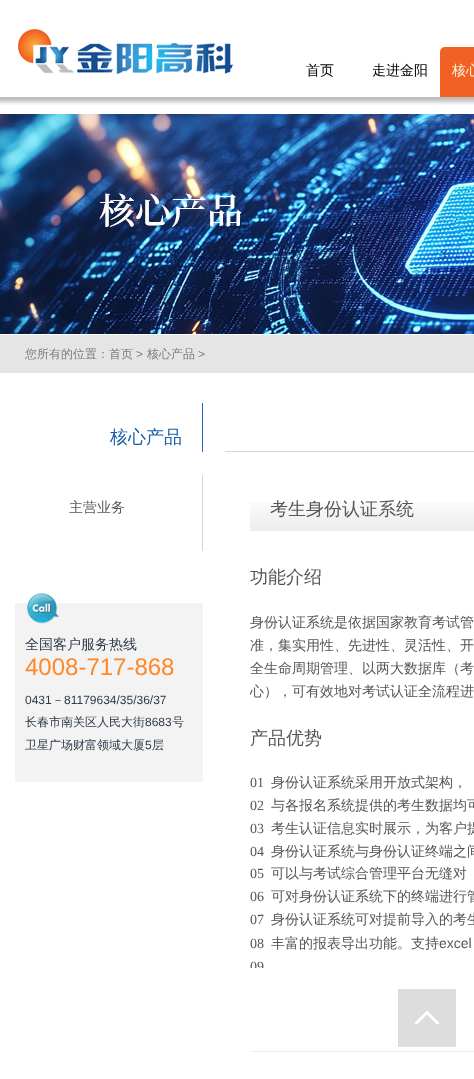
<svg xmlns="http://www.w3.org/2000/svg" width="474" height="1079">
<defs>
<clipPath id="clip1"><rect x="250" y="566" width="224" height="402"/></clipPath>
</defs>
<rect width="100%" height="100%" fill="#fff"/>
<image x="18" y="29" width="215" height="45" href="media/1.png"/>
<text x="306" y="75" style="font-family:WenQuanYi Zen Hei;font-size:14px;font-weight:500;fill:#000">首页</text>
<text x="372" y="75" style="font-family:WenQuanYi Zen Hei;font-size:14px;font-weight:500;fill:#000">走进金阳</text>
<image x="440" y="47" width="34" height="50" href="media/2.png"/>
<text x="452" y="75" style="font-family:WenQuanYi Zen Hei;font-size:14px;font-weight:500;fill:#fff7dd">核心</text>
<image x="0" y="97" width="474" height="8" href="media/3.png"/>
<image x="0" y="114" width="474" height="220" href="media/4.png"/>
<rect y="335" width="474" height="38" fill="#e5e5e5"/>
<text x="25" y="358" style="font-family:WenQuanYi Zen Hei;font-size:12px;font-weight:500;fill:#7b7b7b">您所有的位置：首页</text>
<text x="136" y="358" style="font-family:Liberation Sans;font-size:12px;fill:#7b7b7b">&gt;</text>
<text x="147" y="358" style="font-family:WenQuanYi Zen Hei;font-size:12px;font-weight:500;fill:#7b7b7b">核心产品</text>
<text x="198" y="358" style="font-family:Liberation Sans;font-size:12px;fill:#7b7b7b">&gt;</text>
<rect x="202" y="403" width="1" height="49" fill="#2168cb"/>
<text x="110" y="443" style="font-family:WenQuanYi Zen Hei;font-size:18px;font-weight:500;fill:#185fa8">核心产品</text>
<rect x="202" y="475" width="1" height="76" fill="#d5d5d5"/>
<text x="69" y="512" style="font-family:WenQuanYi Zen Hei;font-size:14px;font-weight:500;fill:#565656">主营业务</text>
<rect x="15" y="624" width="188" height="158" fill="#f3f3f3"/>
<image x="15" y="593" width="188" height="31" href="media/5.png"/>
<text x="25" y="649" style="font-family:WenQuanYi Zen Hei;font-size:14px;font-weight:500;fill:#2f3b4b">全国客户服务热线</text>
<text x="25" y="675" style="font-family:Liberation Sans;font-size:24px;fill:#ff8828">4008-717-868</text>
<text x="25" y="704" style="font-family:Liberation Sans;font-size:12px;fill:#2f3b4b">0431</text>
<text x="52" y="704" style="font-family:WenQuanYi Zen Hei;font-size:12px;font-weight:500;fill:#2f3b4b">－</text>
<text x="64" y="704" style="font-family:Liberation Sans;font-size:12px;fill:#2f3b4b">81179634/35/36/37</text>
<text x="25" y="726" style="font-family:WenQuanYi Zen Hei;font-size:12px;font-weight:500;fill:#2f3b4b">长春市南关区人民大街</text>
<text x="145" y="726" style="font-family:Liberation Sans;font-size:12px;fill:#2f3b4b">8683</text>
<text x="172" y="726" style="font-family:WenQuanYi Zen Hei;font-size:12px;font-weight:500;fill:#2f3b4b">号</text>
<text x="25" y="749" style="font-family:WenQuanYi Zen Hei;font-size:12px;font-weight:500;fill:#2f3b4b">卫星广场财富领域大厦</text>
<text x="145" y="749" style="font-family:Liberation Sans;font-size:12px;fill:#2f3b4b">5</text>
<text x="152" y="749" style="font-family:WenQuanYi Zen Hei;font-size:12px;font-weight:500;fill:#2f3b4b">层</text>
<rect x="225" y="451" width="249" height="1" fill="#d5d5d5"/>
<image x="250" y="502" width="224" height="29" href="media/6.png"/>
<text x="270" y="515" style="font-family:WenQuanYi Zen Hei;font-size:18px;font-weight:500;fill:#565656">考生身份认证系统</text>
<text x="250" y="583" style="font-family:WenQuanYi Zen Hei;font-size:18px;font-weight:500;fill:#565656">功能介绍</text>
<text x="250" y="627" style="font-family:WenQuanYi Zen Hei;font-size:14px;font-weight:500;fill:#565656">身份认证系统是依据国家教育考试管</text>
<text x="250" y="650" style="font-family:WenQuanYi Zen Hei;font-size:14px;font-weight:500;fill:#565656">准，集实用性、先进性、灵活性、开</text>
<text x="250" y="673" style="font-family:WenQuanYi Zen Hei;font-size:14px;font-weight:500;fill:#565656">全生命周期管理、以两大数据库（考</text>
<text x="250" y="696" style="font-family:WenQuanYi Zen Hei;font-size:14px;font-weight:500;fill:#565656">心），可有效地对考试认证全流程进</text>
<text x="250" y="744" style="font-family:WenQuanYi Zen Hei;font-size:18px;font-weight:500;fill:#565656">产品优势</text>
<text x="250" y="787" style="font-family:Liberation Serif;font-size:14px;fill:#565656">01</text>
<text x="271" y="787" style="font-family:WenQuanYi Zen Hei;font-size:14px;font-weight:500;fill:#565656">身份认证系统采用开放式架构，</text>
<text x="250" y="810" style="font-family:Liberation Serif;font-size:14px;fill:#565656">02</text>
<text x="271" y="810" style="font-family:WenQuanYi Zen Hei;font-size:14px;font-weight:500;fill:#565656">与各报名系统提供的考生数据均可</text>
<text x="250" y="833" style="font-family:Liberation Serif;font-size:14px;fill:#565656">03</text>
<text x="271" y="833" style="font-family:WenQuanYi Zen Hei;font-size:14px;font-weight:500;fill:#565656">考生认证信息实时展示，为客户提</text>
<text x="250" y="856" style="font-family:Liberation Serif;font-size:14px;fill:#565656">04</text>
<text x="271" y="856" style="font-family:WenQuanYi Zen Hei;font-size:14px;font-weight:500;fill:#565656">身份认证系统与身份认证终端之间</text>
<text x="250" y="878" style="font-family:Liberation Serif;font-size:14px;fill:#565656">05</text>
<text x="271" y="878" style="font-family:WenQuanYi Zen Hei;font-size:14px;font-weight:500;fill:#565656">可以与考试综合管理平台无缝对</text>
<text x="250" y="901" style="font-family:Liberation Serif;font-size:14px;fill:#565656">06</text>
<text x="271" y="901" style="font-family:WenQuanYi Zen Hei;font-size:14px;font-weight:500;fill:#565656">可对身份认证系统下的终端进行管</text>
<text x="250" y="924" style="font-family:Liberation Serif;font-size:14px;fill:#565656">07</text>
<text x="271" y="924" style="font-family:WenQuanYi Zen Hei;font-size:14px;font-weight:500;fill:#565656">身份认证系统可对提前导入的考生</text>
<text x="250" y="948" style="font-family:Liberation Serif;font-size:14px;fill:#565656">08</text>
<text x="271" y="948" style="font-family:WenQuanYi Zen Hei;font-size:14px;font-weight:500;fill:#565656">丰富的报表导出功能。支持</text>
<text x="439" y="948" style="font-family:Liberation Sans;font-size:14px;fill:#565656">excel</text>
<g clip-path="url(#clip1)">
<text x="250" y="971" style="font-family:Liberation Serif;font-size:14px;fill:#565656">09</text>
</g>
<rect x="250" y="1051" width="224" height="1" fill="#ededed"/>
<image x="398" y="989" width="58" height="58" href="media/7.png"/>
</svg>
